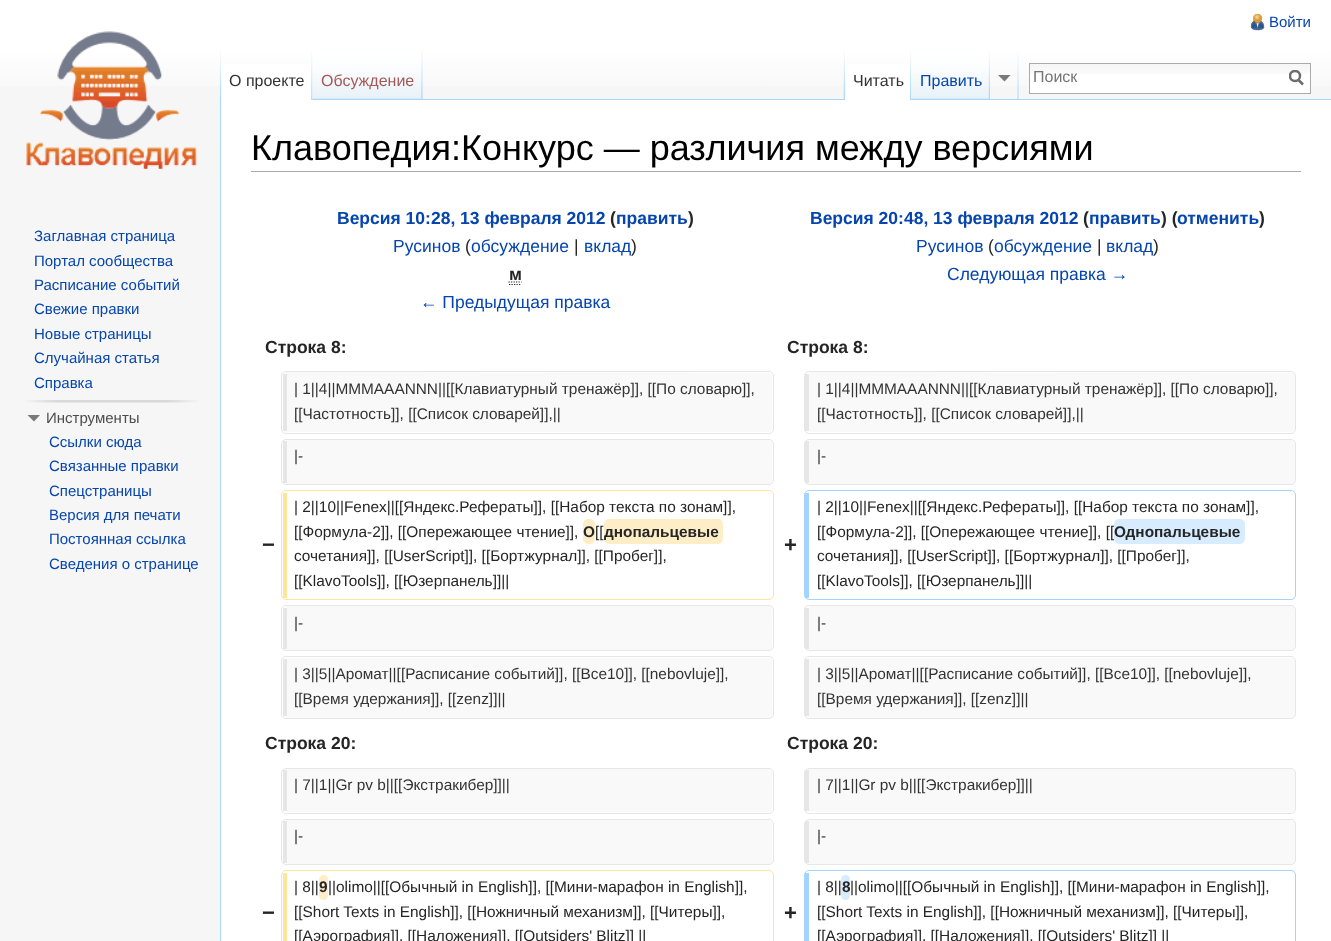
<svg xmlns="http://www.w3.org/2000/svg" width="1331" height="941">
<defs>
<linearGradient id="g1" gradientUnits="userSpaceOnUse" x1="666" y1="0" x2="666" y2="100"><stop offset="0.5" stop-color="#fff"/><stop offset="1" stop-color="#f6f6f6"/></linearGradient>
<clipPath id="clip1"><rect x="1289" y="70" width="15" height="16"/></clipPath>
</defs>
<rect width="100%" height="100%" fill="#f6f6f6"/>
<rect width="1331" height="86" fill="url(#g1)"/>
<image x="1250" y="14" width="15" height="17" href="media/1.png"/>
<text x="1269" y="27" style="font-family:Liberation Sans;font-size:15px;fill:#0645ad">Войти</text>
<image x="220" y="50" width="1" height="49" href="media/2.png"/>
<rect x="221" y="64" width="92" height="36" fill="#fff"/>
<image x="311" y="52" width="2" height="48" href="media/3.png"/>
<text x="229" y="86" style="font-family:Liberation Sans;font-size:16px;fill:#333">О проекте</text>
<rect x="422" y="50" width="1" height="50" fill="#f3f3f3"/>
<image x="312" y="50" width="111" height="50" href="media/4.png"/>
<image x="421" y="52" width="2" height="48" href="media/5.png"/>
<text x="321" y="86" style="font-family:Liberation Sans;font-size:16px;fill:#a55858">Обсуждение</text>
<image x="843" y="50" width="2" height="49" href="media/6.png"/>
<rect x="423" y="99" width="908" height="1" fill="#a7d7f9"/>
<rect x="845" y="64" width="67" height="36" fill="#fff"/>
<image x="910" y="50" width="2" height="50" href="media/7.png"/>
<text x="853" y="86" style="font-family:Liberation Sans;font-size:16px;fill:#333">Читать</text>
<image x="911" y="50" width="79" height="50" href="media/8.png"/>
<image x="988" y="50" width="2" height="49" href="media/9.png"/>
<text x="920" y="86" style="font-family:Liberation Sans;font-size:16px;fill:#0645ad">Править</text>
<path d="M1010.5 75l-6 6.5l-6.5-6.5z" fill="#797979"/>
<image x="1017" y="52" width="2" height="47" href="media/10.png"/>
<rect x="1030" y="74" width="280" height="19" fill="#fff"/>
<image x="1030" y="64" width="280" height="10" href="media/11.png"/>
<rect x="1029.5" y="63.5" width="281" height="30" fill="none" stroke="#aaa"/>
<text x="1033" y="82" style="font-family:Liberation Sans;font-size:16px;fill:#757575">Поиск</text>
<path d="M1303 84.5l-5-5" fill="none" stroke="#6c6c6c" stroke-width="2.5"/>
<g clip-path="url(#clip1)">
<circle cx="1295" cy="76" r="5" fill="none" stroke="#6c6c6c" stroke-width="2.5"/>
</g>
<image x="26" y="31" width="171" height="139" href="media/12.png"/>
<text x="34" y="241" style="font-family:Liberation Sans;font-size:15px;fill:#0645ad">Заглавная страница</text>
<text x="34" y="266" style="font-family:Liberation Sans;font-size:15px;fill:#0645ad">Портал сообщества</text>
<text x="34" y="290" style="font-family:Liberation Sans;font-size:15px;fill:#0645ad">Расписание событий</text>
<text x="34" y="314" style="font-family:Liberation Sans;font-size:15px;fill:#0645ad">Свежие правки</text>
<text x="34" y="339" style="font-family:Liberation Sans;font-size:15px;fill:#0645ad">Новые страницы</text>
<text x="34" y="363" style="font-family:Liberation Sans;font-size:15px;fill:#0645ad">Случайная статья</text>
<text x="34" y="388" style="font-family:Liberation Sans;font-size:15px;fill:#0645ad">Справка</text>
<image x="27" y="400" width="170" height="3" href="media/13.png"/>
<path d="M40 415l-6 6.5l-6.5-6.5z" fill="#797979"/>
<text x="46" y="423" style="font-family:Liberation Sans;font-size:15px;fill:#4d4d4d">Инструменты</text>
<text x="49" y="447" style="font-family:Liberation Sans;font-size:15px;fill:#0645ad">Ссылки сюда</text>
<text x="49" y="471" style="font-family:Liberation Sans;font-size:15px;fill:#0645ad">Связанные правки</text>
<text x="49" y="496" style="font-family:Liberation Sans;font-size:15px;fill:#0645ad">Спецстраницы</text>
<text x="49" y="520" style="font-family:Liberation Sans;font-size:15px;fill:#0645ad">Версия для печати</text>
<text x="49" y="544" style="font-family:Liberation Sans;font-size:15px;fill:#0645ad">Постоянная ссылка</text>
<text x="49" y="569" style="font-family:Liberation Sans;font-size:15px;fill:#0645ad">Сведения о странице</text>
<rect x="221" y="100" width="1110" height="841" fill="#fff"/>
<rect x="220" y="99" width="1" height="842" fill="#a7d7f9"/>
<rect x="251" y="171" width="1050" height="1" fill="#aaa"/>
<text x="251" y="160" style="font-family:Liberation Sans;font-size:36px;fill:#000">Клавопедия:Конкурс — различия между версиями</text>
<text x="337" y="224" style="font-family:Liberation Sans;font-size:17.5px;font-weight:bold;fill:#0645ad">Версия 10:28, 13 февраля 2012</text>
<text x="610" y="224" style="font-family:Liberation Sans;font-size:17.5px;font-weight:bold;fill:#252525">(</text>
<text x="616" y="224" style="font-family:Liberation Sans;font-size:17.5px;font-weight:bold;fill:#0645ad">править</text>
<text x="688" y="224" style="font-family:Liberation Sans;font-size:17.5px;font-weight:bold;fill:#252525">)</text>
<text x="393" y="252" style="font-family:Liberation Sans;font-size:17.5px;fill:#0645ad">Русинов</text>
<text x="465" y="252" style="font-family:Liberation Sans;font-size:17.5px;fill:#252525">(</text>
<text x="471" y="252" style="font-family:Liberation Sans;font-size:17.5px;fill:#0645ad">обсуждение</text>
<text x="574" y="252" style="font-family:Liberation Sans;font-size:17.5px;fill:#252525">|</text>
<text x="584" y="252" style="font-family:Liberation Sans;font-size:17.5px;fill:#0645ad">вклад</text>
<text x="631" y="252" style="font-family:Liberation Sans;font-size:17.5px;fill:#252525">)</text>
<text x="509" y="280" style="font-family:Liberation Sans;font-size:17.5px;font-weight:bold;fill:#252525">м</text>
<path d="M509 284.5h12m-12.5-2.5h13" fill="none" stroke="#252525" stroke-width="1.2" stroke-dasharray="1.25 1.25"/>
<text x="420" y="308" style="font-family:Liberation Sans;font-size:17.5px;fill:#0645ad">← Предыдущая правка</text>
<text x="810" y="224" style="font-family:Liberation Sans;font-size:17.5px;font-weight:bold;fill:#0645ad">Версия 20:48, 13 февраля 2012</text>
<text x="1083" y="224" style="font-family:Liberation Sans;font-size:17.5px;font-weight:bold;fill:#252525">(</text>
<text x="1089" y="224" style="font-family:Liberation Sans;font-size:17.5px;font-weight:bold;fill:#0645ad">править</text>
<text x="1161" y="224" style="font-family:Liberation Sans;font-size:17.5px;font-weight:bold;fill:#252525">) (</text>
<text x="1177" y="224" style="font-family:Liberation Sans;font-size:17.5px;font-weight:bold;fill:#0645ad">отменить</text>
<text x="1259" y="224" style="font-family:Liberation Sans;font-size:17.5px;font-weight:bold;fill:#252525">)</text>
<text x="916" y="252" style="font-family:Liberation Sans;font-size:17.5px;fill:#0645ad">Русинов</text>
<text x="988" y="252" style="font-family:Liberation Sans;font-size:17.5px;fill:#252525">(</text>
<text x="994" y="252" style="font-family:Liberation Sans;font-size:17.5px;fill:#0645ad">обсуждение</text>
<text x="1097" y="252" style="font-family:Liberation Sans;font-size:17.5px;fill:#252525">|</text>
<text x="1106" y="252" style="font-family:Liberation Sans;font-size:17.5px;fill:#0645ad">вклад</text>
<text x="1153" y="252" style="font-family:Liberation Sans;font-size:17.5px;fill:#252525">)</text>
<text x="947" y="280" style="font-family:Liberation Sans;font-size:17.5px;fill:#0645ad">Следующая правка →</text>
<text x="265" y="353" style="font-family:Liberation Sans;font-size:17.5px;font-weight:bold;fill:#252525">Строка 8:</text>
<text x="787" y="353" style="font-family:Liberation Sans;font-size:17.5px;font-weight:bold;fill:#252525">Строка 8:</text>
<path d="M286 372l484 1c4 2 2 10 2 12v35c0 2 3 12-3 12h-483z" fill="#f9f9f9"/>
<rect x="281.5" y="371.5" width="492" height="62" rx="4.5" fill="none" stroke="#e6e6e6"/>
<rect x="283" y="374" width="4" height="57" fill="#e6e6e6"/>
<text x="294" y="394" style="font-family:Liberation Sans;font-size:15.4px;fill:#333">| 1||4||MMMAAANNN||[[Клавиатурный тренажёр]], [[По словарю]],</text>
<text x="294" y="419" style="font-family:Liberation Sans;font-size:15.4px;fill:#333">[[Частотность]], [[Список словарей]],||</text>
<path d="M809 372l484 1c4 2 2 10 2 12v35c0 2 2 12-4 12h-482z" fill="#f9f9f9"/>
<rect x="804.5" y="371.5" width="491" height="62" rx="4.5" fill="none" stroke="#e6e6e6"/>
<rect x="805" y="374" width="4" height="57" fill="#e6e6e6"/>
<text x="817" y="394" style="font-family:Liberation Sans;font-size:15.4px;fill:#333">| 1||4||MMMAAANNN||[[Клавиатурный тренажёр]], [[По словарю]],</text>
<text x="817" y="419" style="font-family:Liberation Sans;font-size:15.4px;fill:#333">[[Частотность]], [[Список словарей]],||</text>
<path d="M286 440h483l2 1c3 3 1 12 1 15v18c0 3 2 10-3 10h-483z" fill="#f9f9f9"/>
<rect x="281.5" y="439.5" width="492" height="45" rx="4.5" fill="none" stroke="#e6e6e6"/>
<rect x="283" y="441" width="4" height="42" fill="#e6e6e6"/>
<text x="294" y="461" style="font-family:Liberation Sans;font-size:15.4px;fill:#333">|-</text>
<path d="M809 440h482l3 1c2 3 1 12 1 15v18c0 3 1 10-4 10h-482z" fill="#f9f9f9"/>
<rect x="804.5" y="439.5" width="491" height="45" rx="4.5" fill="none" stroke="#e6e6e6"/>
<rect x="805" y="441" width="4" height="42" fill="#e6e6e6"/>
<text x="817" y="461" style="font-family:Liberation Sans;font-size:15.4px;fill:#333">|-</text>
<text x="262" y="552" style="font-family:Liberation Sans;font-size:22px;font-weight:bold;fill:#252525">−</text>
<rect x="281.5" y="490.5" width="492" height="109" rx="4.5" fill="none" stroke="#ffe49c"/>
<rect x="283" y="493" width="4" height="105" fill="#ffe49c"/>
<text x="294" y="512" style="font-family:Liberation Sans;font-size:15.4px;fill:#252525">| 2||10||Fenex||[[Яндекс.Рефераты]], [[Набор текста по зонам]],</text>
<text x="294" y="537" style="font-family:Liberation Sans;font-size:15.4px;fill:#252525">[[Формула-2]], [[Опережающее чтение]],</text>
<rect x="583" y="519" width="12" height="25" rx="5" fill="#feeec8"/>
<text x="583" y="537" style="font-family:Liberation Sans;font-size:15.4px;font-weight:bold;fill:#252525">О</text>
<text x="595" y="537" style="font-family:Liberation Sans;font-size:15.4px;fill:#252525">[[</text>
<rect x="604" y="519" width="119" height="25" rx="5" fill="#feeec8"/>
<text x="604" y="537" style="font-family:Liberation Sans;font-size:15.4px;font-weight:bold;fill:#252525">днопальцевые</text>
<text x="294" y="561" style="font-family:Liberation Sans;font-size:15.4px;fill:#252525">сочетания]], [[UserScript]], [[Бортжурнал]], [[Пробег]],</text>
<text x="294" y="586" style="font-family:Liberation Sans;font-size:15.4px;fill:#252525">[[KlavoTools]], [[Юзерпанель]]||</text>
<text x="784" y="552" style="font-family:Liberation Sans;font-size:22px;font-weight:bold;fill:#252525">+</text>
<rect x="804.5" y="490.5" width="491" height="109" rx="4.5" fill="none" stroke="#a3d3ff"/>
<rect x="805" y="493" width="4" height="105" fill="#a3d3ff"/>
<text x="817" y="512" style="font-family:Liberation Sans;font-size:15.4px;fill:#252525">| 2||10||Fenex||[[Яндекс.Рефераты]], [[Набор текста по зонам]],</text>
<text x="817" y="537" style="font-family:Liberation Sans;font-size:15.4px;fill:#252525">[[Формула-2]], [[Опережающее чтение]], [[</text>
<rect x="1114" y="519" width="131" height="25" rx="5" fill="#d8ecff"/>
<text x="1114" y="537" style="font-family:Liberation Sans;font-size:15.4px;font-weight:bold;fill:#252525">Однопальцевые</text>
<text x="817" y="561" style="font-family:Liberation Sans;font-size:15.4px;fill:#252525">сочетания]], [[UserScript]], [[Бортжурнал]], [[Пробег]],</text>
<text x="817" y="586" style="font-family:Liberation Sans;font-size:15.4px;fill:#252525">[[KlavoTools]], [[Юзерпанель]]||</text>
<path d="M286 606h483l2 1c3 3 1 12 1 15v18c0 3 2 10-3 10h-483z" fill="#f9f9f9"/>
<rect x="281.5" y="605.5" width="492" height="45" rx="4.5" fill="none" stroke="#e6e6e6"/>
<rect x="283" y="608" width="4" height="41" fill="#e6e6e6"/>
<text x="294" y="628" style="font-family:Liberation Sans;font-size:15.4px;fill:#333">|-</text>
<path d="M809 606h482l3 1c2 3 1 12 1 15v18c0 3 1 10-4 10h-482z" fill="#f9f9f9"/>
<rect x="804.5" y="605.5" width="491" height="45" rx="4.5" fill="none" stroke="#e6e6e6"/>
<rect x="805" y="608" width="4" height="41" fill="#e6e6e6"/>
<text x="817" y="628" style="font-family:Liberation Sans;font-size:15.4px;fill:#333">|-</text>
<path d="M286 658h484c4 2 2 10 2 12v35c0 2 3 12-3 13h-483z" fill="#f9f9f9"/>
<rect x="281.5" y="656.5" width="492" height="62" rx="4.5" fill="none" stroke="#e6e6e6"/>
<rect x="283" y="659" width="4" height="57" fill="#e6e6e6"/>
<text x="294" y="679" style="font-family:Liberation Sans;font-size:15.4px;fill:#333">| 3||5||Аромат||[[Расписание событий]], [[Все10]], [[nebovluje]],</text>
<text x="294" y="704" style="font-family:Liberation Sans;font-size:15.4px;fill:#333">[[Время удержания]], [[zenz]]||</text>
<path d="M809 658h484c4 2 2 10 2 12v35c0 2 2 12-4 13h-482z" fill="#f9f9f9"/>
<rect x="804.5" y="656.5" width="491" height="62" rx="4.5" fill="none" stroke="#e6e6e6"/>
<rect x="805" y="659" width="4" height="57" fill="#e6e6e6"/>
<text x="817" y="679" style="font-family:Liberation Sans;font-size:15.4px;fill:#333">| 3||5||Аромат||[[Расписание событий]], [[Все10]], [[nebovluje]],</text>
<text x="817" y="704" style="font-family:Liberation Sans;font-size:15.4px;fill:#333">[[Время удержания]], [[zenz]]||</text>
<text x="265" y="749" style="font-family:Liberation Sans;font-size:17.5px;font-weight:bold;fill:#252525">Строка 20:</text>
<text x="787" y="749" style="font-family:Liberation Sans;font-size:17.5px;font-weight:bold;fill:#252525">Строка 20:</text>
<path d="M286 769h483l2 1c3 2 1 11 1 15v18c0 3 2 9-3 9h-483z" fill="#f9f9f9"/>
<rect x="281.5" y="768.5" width="492" height="45" rx="4.5" fill="none" stroke="#e6e6e6"/>
<rect x="283" y="770" width="4" height="41" fill="#e6e6e6"/>
<text x="294" y="790" style="font-family:Liberation Sans;font-size:15.4px;fill:#333">| 7||1||Gr pv b||[[Экстракибер]]||</text>
<path d="M809 769h482l3 1c2 2 1 11 1 15v18c0 3 1 9-4 9h-482z" fill="#f9f9f9"/>
<rect x="804.5" y="768.5" width="491" height="45" rx="4.5" fill="none" stroke="#e6e6e6"/>
<rect x="805" y="770" width="4" height="41" fill="#e6e6e6"/>
<text x="817" y="790" style="font-family:Liberation Sans;font-size:15.4px;fill:#333">| 7||1||Gr pv b||[[Экстракибер]]||</text>
<path d="M286 820h483l2 1c3 3 1 12 1 15v18c0 3 2 10-3 10h-483z" fill="#f9f9f9"/>
<rect x="281.5" y="819.5" width="492" height="45" rx="4.5" fill="none" stroke="#e6e6e6"/>
<rect x="283" y="821" width="4" height="42" fill="#e6e6e6"/>
<text x="294" y="841" style="font-family:Liberation Sans;font-size:15.4px;fill:#333">|-</text>
<path d="M809 820h482l3 1c2 3 1 12 1 15v18c0 3 1 10-4 10h-482z" fill="#f9f9f9"/>
<rect x="804.5" y="819.5" width="491" height="45" rx="4.5" fill="none" stroke="#e6e6e6"/>
<rect x="805" y="821" width="4" height="42" fill="#e6e6e6"/>
<text x="817" y="841" style="font-family:Liberation Sans;font-size:15.4px;fill:#333">|-</text>
<text x="262" y="920" style="font-family:Liberation Sans;font-size:22px;font-weight:bold;fill:#252525">−</text>
<rect x="281.5" y="870.5" width="492" height="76" rx="4.5" fill="none" stroke="#ffe49c"/>
<rect x="283" y="873" width="4" height="68" fill="#ffe49c"/>
<text x="294" y="892" style="font-family:Liberation Sans;font-size:15.4px;fill:#252525">| 8||</text>
<rect x="319" y="875" width="9" height="25" rx="4.5" fill="#feeec8"/>
<text x="319" y="892" style="font-family:Liberation Sans;font-size:15.4px;font-weight:bold;fill:#252525">9</text>
<text x="328" y="892" style="font-family:Liberation Sans;font-size:15.4px;fill:#252525">||olimo||[[Обычный in English]], [[Мини-марафон in English]],</text>
<text x="294" y="917" style="font-family:Liberation Sans;font-size:15.4px;fill:#252525">[[Short Texts in English]], [[Ножничный механизм]], [[Читеры]],</text>
<text x="294" y="941" style="font-family:Liberation Sans;font-size:15.4px;fill:#252525">[[Аэрография]], [[Наложения]], [[Outsiders' Blitz]] ||</text>
<text x="784" y="920" style="font-family:Liberation Sans;font-size:22px;font-weight:bold;fill:#252525">+</text>
<rect x="804.5" y="870.5" width="491" height="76" rx="4.5" fill="none" stroke="#a3d3ff"/>
<rect x="805" y="873" width="4" height="68" fill="#a3d3ff"/>
<text x="817" y="892" style="font-family:Liberation Sans;font-size:15.4px;fill:#252525">| 8||</text>
<rect x="841" y="875" width="9" height="25" rx="4.5" fill="#d8ecff"/>
<text x="842" y="892" style="font-family:Liberation Sans;font-size:15.4px;font-weight:bold;fill:#252525">8</text>
<text x="850" y="892" style="font-family:Liberation Sans;font-size:15.4px;fill:#252525">||olimo||[[Обычный in English]], [[Мини-марафон in English]],</text>
<text x="817" y="917" style="font-family:Liberation Sans;font-size:15.4px;fill:#252525">[[Short Texts in English]], [[Ножничный механизм]], [[Читеры]],</text>
<text x="817" y="941" style="font-family:Liberation Sans;font-size:15.4px;fill:#252525">[[Аэрография]], [[Наложения]], [[Outsiders' Blitz]] ||</text>
</svg>
